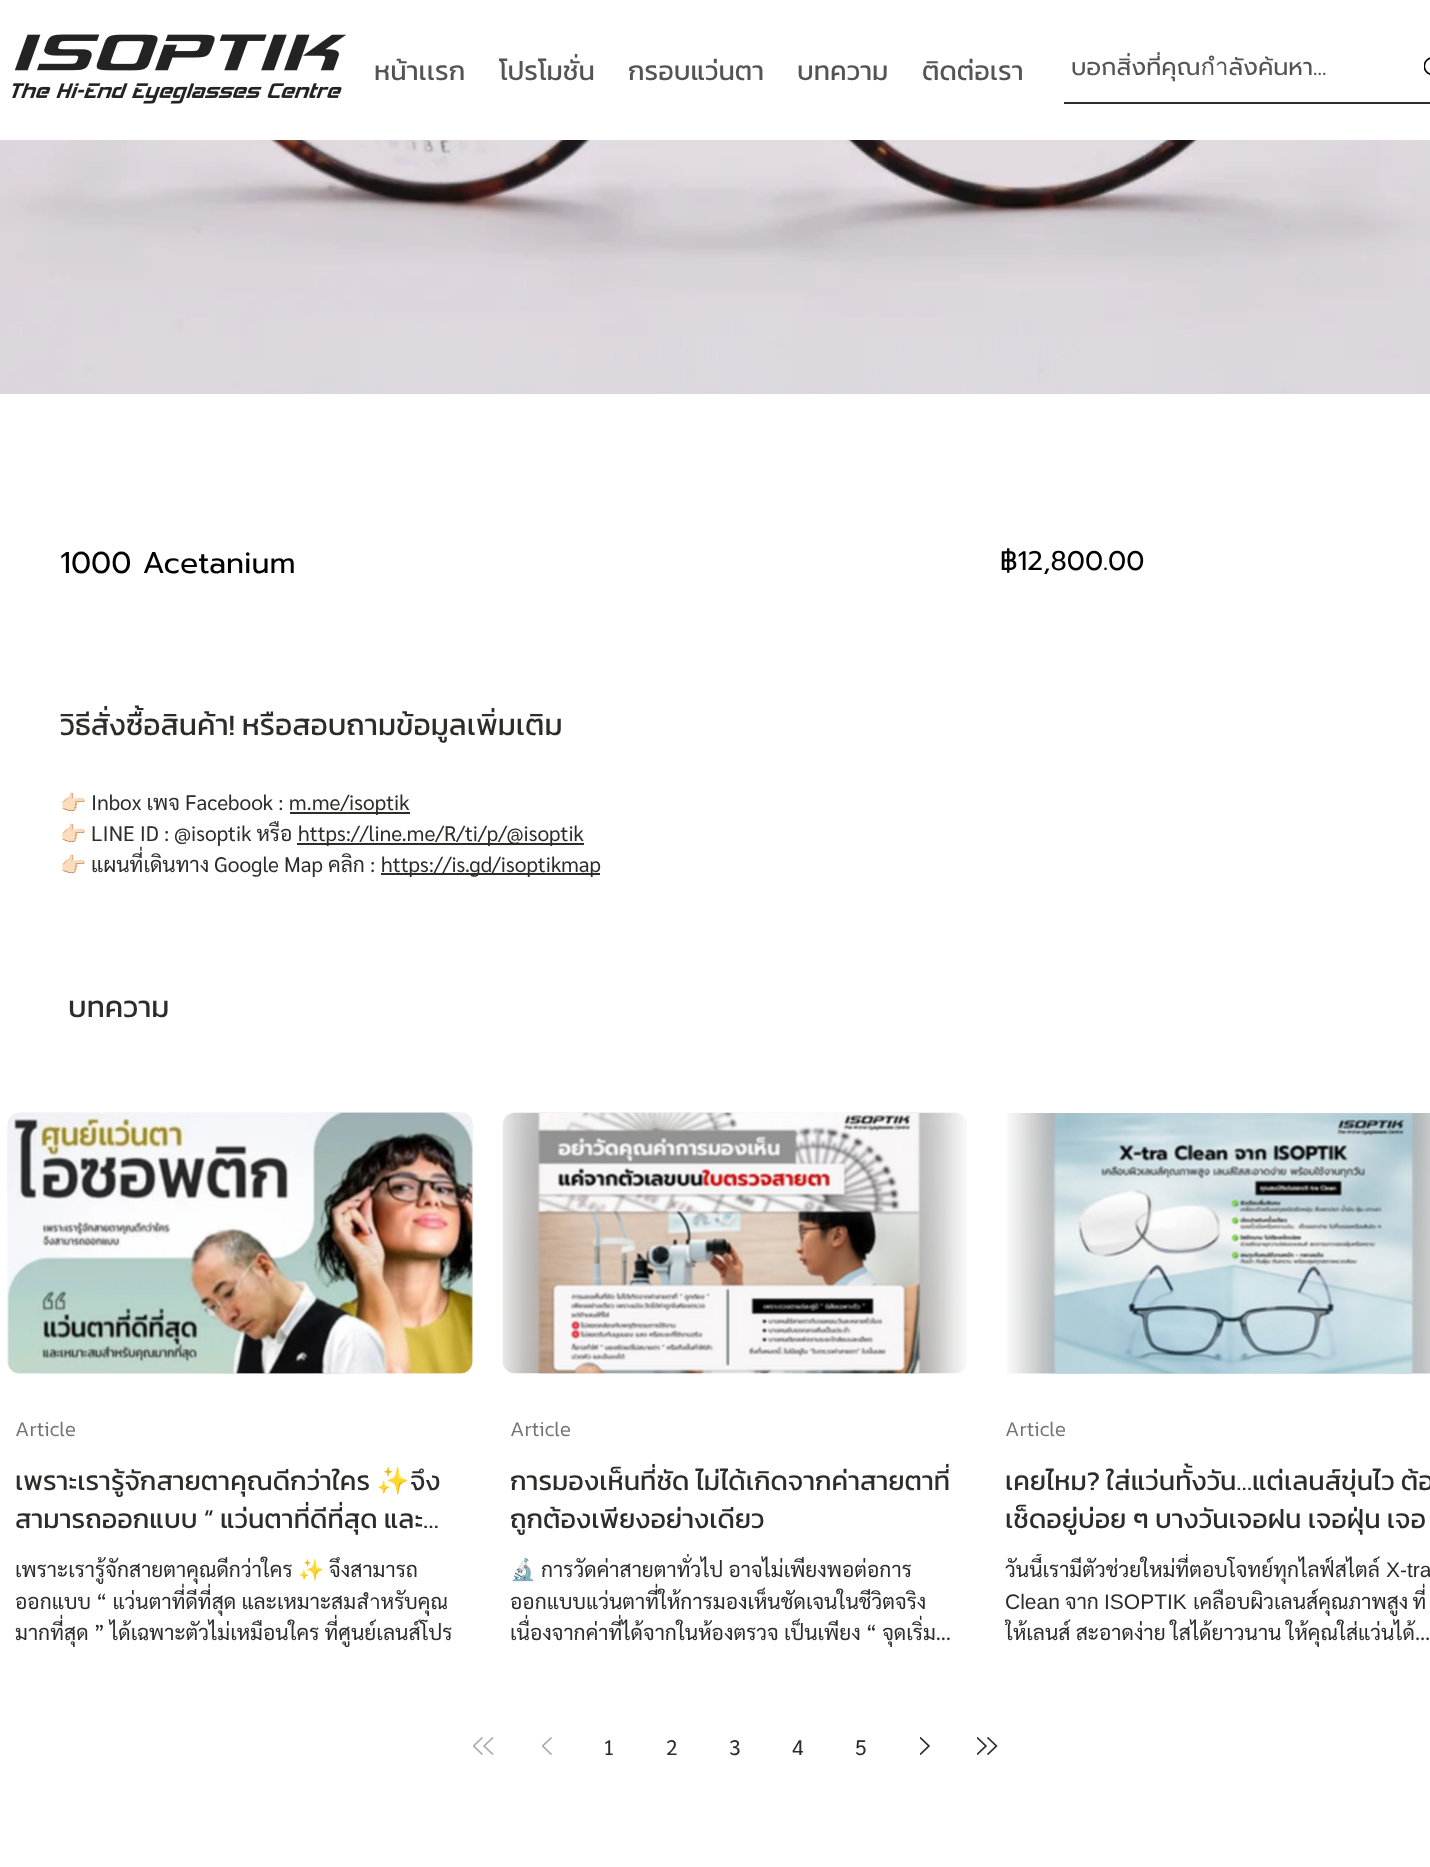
<svg xmlns="http://www.w3.org/2000/svg" width="1430" height="1867">
<defs>
<clipPath id="clip1"><rect x="510" y="1461" width="450" height="77"/></clipPath>
<clipPath id="clip2"><rect x="510" y="1554" width="450" height="95"/></clipPath>
<clipPath id="clip3"><rect x="1005" y="1461" width="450" height="77"/></clipPath>
<clipPath id="clip4"><rect x="1005" y="1554" width="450" height="95"/></clipPath>
</defs>
<rect width="100%" height="100%" fill="#fff"/>
<image x="12" y="34" width="335" height="70" href="media/1.png"/>
<text x="374" y="80" style="font-family:Kanit;font-size:27px;fill:#545454">หน้าเเรก</text>
<text x="499" y="80" style="font-family:Kanit;font-size:27px;fill:#545454">โปรโมชั่น</text>
<text x="628" y="80" style="font-family:Kanit;font-size:27px;fill:#545454">กรอบแว่นตา</text>
<text x="797" y="80" style="font-family:Kanit;font-size:27px;fill:#545454">บทความ</text>
<text x="922" y="80" style="font-family:Kanit;font-size:27px;fill:#545454">ติดต่อเรา</text>
<rect x="1064" y="102" width="366" height="2" fill="#2c2c2b"/>
<text x="1071" y="75" style="font-family:Prompt;font-size:24px;fill:#545454">บอกสิ่งที่คุณกำลังค้นหา...</text>
<image x="1424" y="57" width="6" height="18" href="media/2.png"/>
<image x="0" y="140" width="1430" height="254" href="media/3.png"/>
<text x="60" y="573" style="font-family:Prompt;font-size:30px;fill:#000">1000 Acetanium</text>
<text x="1000" y="570" style="font-family:Prompt;font-size:27px;fill:#000">฿12,800.00</text>
<text x="60" y="735" style="font-family:Kanit;font-size:30px;fill:#2c2c2b">วิธีสั่งซื้อสินค้า! หรือสอบถามข้อมูลเพิ่มเติม</text>
<text x="60" y="810" style="font-family:Noto Color Emoji;font-size:21px;fill:#2c2c2b">👉🏻</text>
<text x="91" y="810" style="font-family:Sarabun;font-size:21px;fill:#2c2c2b">Inbox เพจ Facebook :</text>
<rect x="290" y="812" width="120" height="2" fill="#2c2c2b"/>
<text x="289" y="810" style="font-family:Sarabun;font-size:21px;fill:#2c2c2b">m.me/isoptik</text>
<text x="60" y="841" style="font-family:Noto Color Emoji;font-size:21px;fill:#2c2c2b">👉🏻</text>
<text x="91" y="841" style="font-family:Sarabun;font-size:21px;fill:#2c2c2b">LINE ID : @isoptik หรือ</text>
<rect x="297" y="843" width="287" height="2" fill="#2c2c2b"/>
<text x="298" y="841" style="font-family:Sarabun;font-size:21px;fill:#2c2c2b">https://line.me/R/ti/p/@isoptik</text>
<text x="60" y="872" style="font-family:Noto Color Emoji;font-size:21px;fill:#2c2c2b">👉🏻</text>
<text x="91" y="872" style="font-family:Sarabun;font-size:21px;fill:#2c2c2b">แผนที่เดินทาง Google Map คลิก :</text>
<rect x="381" y="873" width="219" height="2" fill="#2c2c2b"/>
<text x="381" y="872" style="font-family:Sarabun;font-size:21px;fill:#2c2c2b">https://is.gd/isoptikmap</text>
<text x="68" y="1017" style="font-family:Kanit;font-size:30px;fill:#2c2c2b">บทความ</text>
<image x="7" y="1112" width="466" height="262" href="media/4.png"/>
<image x="7" y="1112" width="466" height="262" href="media/5.png"/>
<text x="15" y="1436" style="font-family:Kanit;font-size:21px;font-weight:300;fill:#727272">Article</text>
<text x="15" y="1490" style="font-family:Kanit;font-size:27px;fill:#2c2c2b">เพราะเรารู้จักสายตาคุณดีกว่าใคร</text>
<text x="376" y="1490" style="font-family:'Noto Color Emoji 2';font-size:27px;fill:#2c2c2b">✨</text>
<text x="410" y="1490" style="font-family:Kanit;font-size:27px;fill:#2c2c2b">จึง</text>
<text x="15" y="1528" style="font-family:Kanit;font-size:27px;fill:#2c2c2b">สามารถออกแบบ “ แว่นตาที่ดีที่สุด และ…</text>
<text x="15" y="1577" style="font-family:Sarabun;font-size:21px;fill:#2c2c2b">เพราะเรารู้จักสายตาคุณดีกว่าใคร</text>
<text x="298" y="1577" style="font-family:Noto Color Emoji;font-size:21px;fill:#2c2c2b">✨</text>
<text x="329" y="1577" style="font-family:Sarabun;font-size:21px;fill:#2c2c2b">จึงสามารถ</text>
<text x="15" y="1609" style="font-family:Sarabun;font-size:21px;fill:#2c2c2b">ออกแบบ “ แว่นตาที่ดีที่สุด และเหมาะสมสำหรับคุณ</text>
<text x="15" y="1640" style="font-family:Sarabun;font-size:21px;fill:#2c2c2b">มากที่สุด ” ได้เฉพาะตัวไม่เหมือนใคร ที่ศูนย์เลนส์โปร</text>
<image x="502" y="1112" width="465" height="262" href="media/6.png"/>
<image x="538" y="1112" width="383" height="262" href="media/7.png"/>
<text x="510" y="1436" style="font-family:Kanit;font-size:21px;font-weight:300;fill:#727272">Article</text>
<text x="510" y="1490" style="font-family:Kanit;font-size:27px;fill:#2c2c2b">การมองเห็นที่ชัด ไม่ได้เกิดจากค่าสายตาที่</text>
<g clip-path="url(#clip1)">
<text x="510" y="1528" style="font-family:Kanit;font-size:27px;fill:#2c2c2b">ถูกต้องเพียงอย่างเดียว</text>
</g>
<text x="510" y="1577" style="font-family:Noto Color Emoji;font-size:21px;fill:#2c2c2b">🔬</text>
<g clip-path="url(#clip2)">
<text x="541" y="1577" style="font-family:Sarabun;font-size:21px;fill:#2c2c2b">การวัดค่าสายตาทั่วไป อาจไม่เพียงพอต่อการ</text>
</g>
<text x="510" y="1609" style="font-family:Sarabun;font-size:21px;fill:#2c2c2b">ออกแบบแว่นตาที่ให้การมองเห็นชัดเจนในชีวิตจริง</text>
<g clip-path="url(#clip2)">
<text x="510" y="1640" style="font-family:Sarabun;font-size:21px;fill:#2c2c2b">เนื่องจากค่าที่ได้จากในห้องตรวจ เป็นเพียง “ จุดเริ่ม…</text>
</g>
<image x="1007" y="1113" width="423" height="261" href="media/8.png"/>
<image x="1053" y="1113" width="361" height="261" href="media/9.png"/>
<text x="1005" y="1436" style="font-family:Kanit;font-size:21px;font-weight:300;fill:#727272">Article</text>
<text x="1005" y="1490" style="font-family:Kanit;font-size:27px;fill:#2c2c2b">เคยไหม? ใส่แว่นทั้งวัน…แต่เลนส์ขุ่นไว ต้อ</text>
<g clip-path="url(#clip3)">
<text x="1005" y="1528" style="font-family:Kanit;font-size:27px;fill:#2c2c2b">เช็ดอยู่บ่อย ๆ บางวันเจอฝน เจอฝุ่น เจอ</text>
</g>
<g clip-path="url(#clip4)">
<text x="1005" y="1577" style="font-family:Sarabun;font-size:21px;fill:#2c2c2b">วันนี้เรามีตัวช่วยใหม่ที่ตอบโจทย์ทุกไลฟ์สไตล์</text>
</g>
<text x="1386" y="1577" style="font-family:Liberation Sans;font-size:21px;fill:#2c2c2b">X-tra</text>
<text x="1005" y="1609" style="font-family:Liberation Sans;font-size:21px;fill:#2c2c2b">Clean</text>
<text x="1065" y="1609" style="font-family:Sarabun;font-size:21px;fill:#2c2c2b">จาก</text>
<text x="1104" y="1609" style="font-family:Liberation Sans;font-size:21px;fill:#2c2c2b">ISOPTIK</text>
<text x="1193" y="1609" word-spacing="-1" style="font-family:Sarabun;font-size:21px;fill:#2c2c2b">เคลือบผิวเลนส์คุณภาพสูง ที่</text>
<g clip-path="url(#clip4)">
<text x="1005" y="1640" style="font-family:Sarabun;font-size:21px;fill:#2c2c2b">ให้เลนส์ สะอาดง่าย ใสได้ยาวนาน ให้คุณใส่แว่นได้…</text>
</g>
<image x="473" y="1737" width="10" height="18" href="media/10.png"/>
<image x="483" y="1737" width="11" height="18" href="media/11.png"/>
<image x="542" y="1737" width="10" height="18" href="media/10.png"/>
<text x="603" y="1755" style="font-family:Sarabun;font-size:21px;fill:#2c2c2b">1</text>
<text x="666" y="1755" style="font-family:Sarabun;font-size:21px;fill:#2c2c2b">2</text>
<text x="729" y="1755" style="font-family:Sarabun;font-size:21px;fill:#2c2c2b">3</text>
<text x="792" y="1755" style="font-family:Sarabun;font-size:21px;fill:#2c2c2b">4</text>
<text x="855" y="1755" style="font-family:Sarabun;font-size:21px;fill:#2c2c2b">5</text>
<image x="920" y="1737" width="10" height="18" href="media/12.png"/>
<image x="977" y="1737" width="10" height="18" href="media/12.png"/>
<image x="987" y="1737" width="11" height="18" href="media/13.png"/>
</svg>
